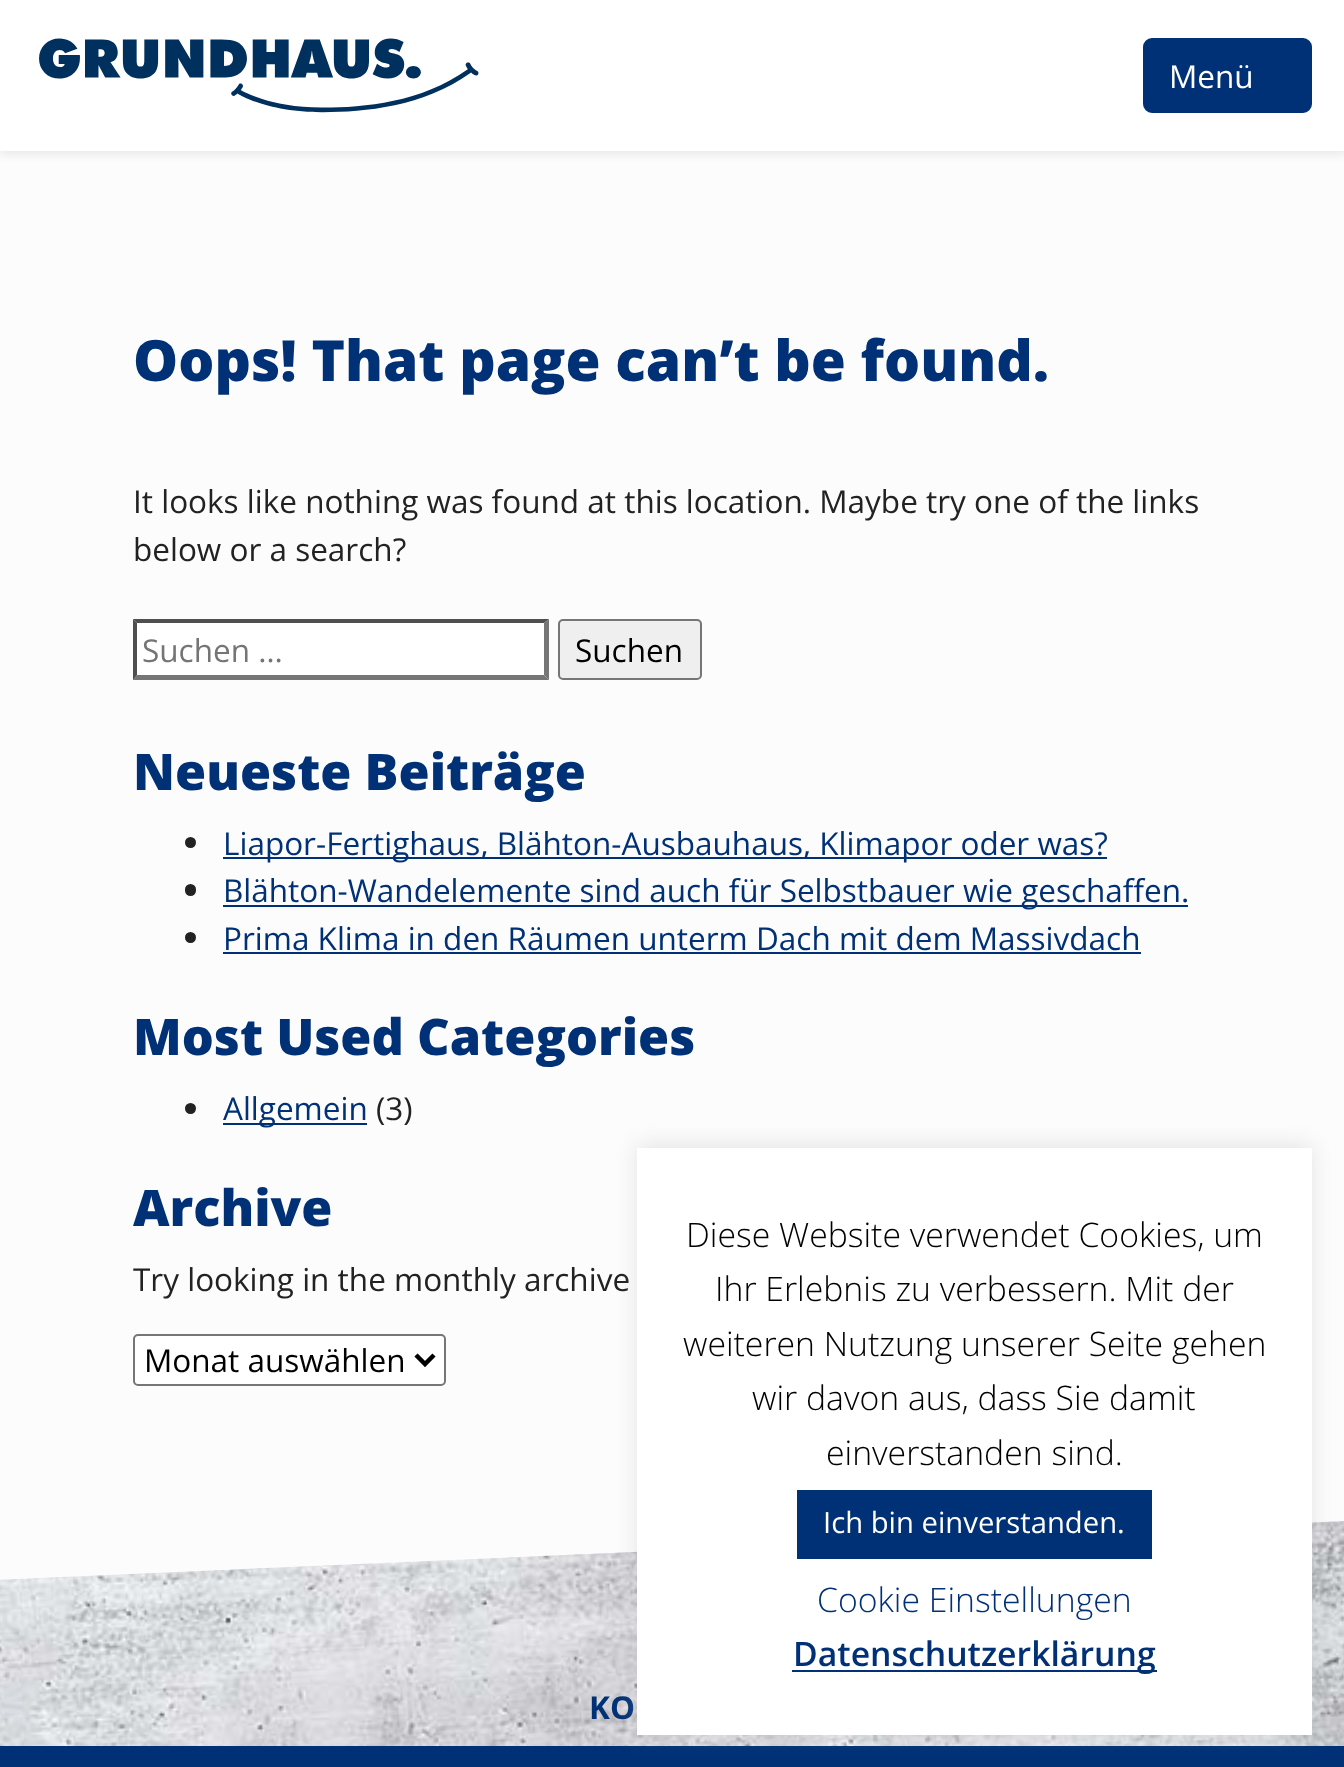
<svg xmlns="http://www.w3.org/2000/svg" width="1344" height="1767">
<rect width="100%" height="100%" fill="#fcfcfc"/>
<rect y="5" width="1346" height="150" fill="#00000012" filter="blur(4px)"/>
<rect width="1344" height="151" fill="#fff"/>
<image x="39" y="38" width="440" height="75" href="media/1.png"/>
<rect x="1144" y="39" width="167" height="73" rx="8" fill="#003176" stroke="#003176" stroke-width="2"/>
<text x="1169" y="88" style="font-family:Open Sans;font-size:31.5px;fill:#fff">Menü</text>
<text x="133" y="381" style="font-family:Open Sans;font-size:56.75px;font-weight:800;fill:#003176">Oops! That page can’t be found.</text>
<text x="133" y="513" style="font-family:Open Sans;font-size:31.5px;fill:#222">It looks like nothing was found at this location. Maybe try one of the links</text>
<text x="133" y="561" style="font-family:Open Sans;font-size:31.5px;fill:#222">below or a search?</text>
<rect x="133" y="619" width="416" height="61" fill="#fff"/>
<path d="M133 619h416l-5 4h-407z" fill="#4f4f4f"/>
<path d="M549 619v61l-5-5v-52z" fill="#767676"/>
<path d="M549 680h-416l4-5h407z" fill="#767676"/>
<path d="M133 680v-61l4 4v52z" fill="#4f4f4f"/>
<text x="142" y="662" style="font-family:Open Sans;font-size:31.5px;fill:#757575">Suchen …</text>
<rect x="559" y="620" width="142" height="59" rx="4" fill="#efefef" stroke="#767676" stroke-width="2"/>
<text x="575" y="662" style="font-family:Open Sans;font-size:31.5px;fill:#000">Suchen</text>
<text x="133" y="790" style="font-family:Open Sans;font-size:50.4px;font-weight:800;fill:#003176">Neueste Beiträge</text>
<circle cx="190.5" cy="842.5" r="5.5" fill="#222"/>
<rect x="223" y="857" width="884" height="2" fill="#003176"/>
<text x="223" y="855" style="font-family:Open Sans;font-size:31.5px;fill:#003176">Liapor-Fertighaus, Blähton-Ausbauhaus, Klimapor oder was?</text>
<rect x="185" y="884" width="11" height="12" rx="5.5" fill="#222"/>
<rect x="223" y="905" width="965" height="2" fill="#003176"/>
<text x="223" y="902" style="font-family:Open Sans;font-size:31.5px;fill:#003176">Blähton-Wandelemente sind auch für Selbstbauer wie geschaffen.</text>
<circle cx="190.5" cy="937.5" r="5.5" fill="#222"/>
<text x="223" y="950" style="font-family:Open Sans;font-size:31.5px;fill:#003176">Prima Klima in den Räumen unterm Dach mit dem Massivdach</text>
<rect x="223" y="952" width="918" height="2" fill="#003176"/>
<text x="133" y="1055" style="font-family:Open Sans;font-size:50.4px;font-weight:800;fill:#003176">Most Used Categories</text>
<circle cx="190.5" cy="1108.5" r="5.5" fill="#222"/>
<rect x="223" y="1123" width="144" height="2" fill="#003176"/>
<text x="223" y="1120" style="font-family:Open Sans;font-size:31.5px;fill:#003176">Allgemein</text>
<text x="376" y="1120" style="font-family:Open Sans;font-size:31.5px;fill:#222">(3)</text>
<text x="133" y="1226" style="font-family:Open Sans;font-size:50.4px;font-weight:800;fill:#003176">Archive</text>
<text x="133" y="1291" style="font-family:Open Sans;font-size:31.5px;fill:#222">Try looking in the monthly archive</text>
<rect x="134" y="1335" width="311" height="50" rx="4" fill="#fff" stroke="#767676" stroke-width="2"/>
<path d="M416 1355l9 9l9-9" fill="none" stroke="#000" stroke-width="4.5"/>
<text x="144" y="1372" style="font-family:Open Sans;font-size:31.5px;fill:#000">Monat auswählen</text>
<image x="0" y="1521" width="1344" height="225" href="media/2.png"/>
<text x="589" y="1719" style="font-family:Open Sans;font-size:31.5px;font-weight:bold;fill:#003176">KO</text>
<rect y="1746" width="1344" height="21" fill="#003176"/>
<rect x="637" y="1145" width="675" height="588" fill="#acabab4d" filter="blur(11px)"/>
<rect x="637" y="1148" width="675" height="587" fill="#fff"/>
<text x="686" y="1247" style="font-family:Open Sans;font-size:33.75px;font-weight:300;fill:#000">Diese Website verwendet Cookies, um</text>
<text x="715" y="1301" style="font-family:Open Sans;font-size:33.75px;font-weight:300;fill:#000">Ihr Erlebnis zu verbessern. Mit der</text>
<text x="683" y="1356" style="font-family:Open Sans;font-size:33.75px;font-weight:300;fill:#000">weiteren Nutzung unserer Seite gehen</text>
<text x="752" y="1410" style="font-family:Open Sans;font-size:33.75px;font-weight:300;fill:#000">wir davon aus, dass Sie damit</text>
<text x="826" y="1465" style="font-family:Open Sans;font-size:33.75px;font-weight:300;fill:#000">einverstanden sind.</text>
<rect x="797" y="1490" width="355" height="69" fill="#003176"/>
<text x="823" y="1533" style="font-family:Open Sans;font-size:29.25px;fill:#fff">Ich bin einverstanden.</text>
<text x="817" y="1612" style="font-family:Open Sans;font-size:33.75px;font-weight:300;fill:#003176">Cookie Einstellungen</text>
<rect x="792" y="1670" width="365" height="2" fill="#003176"/>
<text x="793" y="1666" style="font-family:Open Sans;font-size:33.75px;font-weight:600;fill:#003176">Datenschutzerklärung</text>
</svg>
